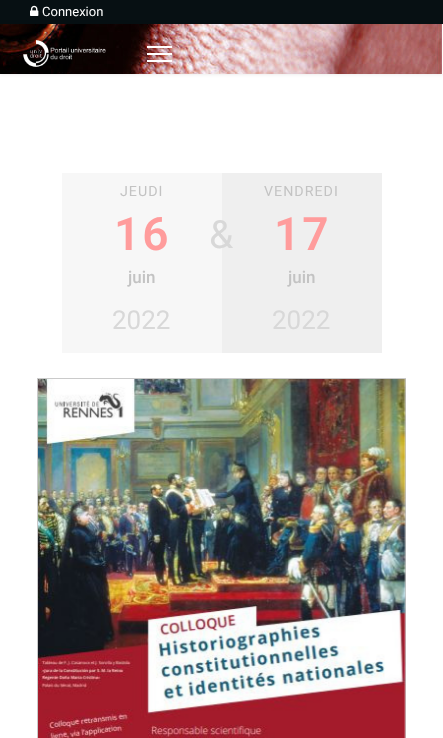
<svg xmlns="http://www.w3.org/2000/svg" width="443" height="738">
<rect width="100%" height="100%" fill="#fff"/>
<rect width="443" height="24" fill="#071013"/>
<image x="30" y="5" width="9" height="11" href="media/1.png"/>
<text x="42" y="16" style="font-family:Roboto;font-size:13px;fill:#fff">Connexion</text>
<rect y="24" width="443" height="50" fill="#0000001a" filter="blur(2px)"/>
<image x="0" y="24" width="443" height="50" href="media/2.png"/>
<image x="23" y="40" width="83" height="27" href="media/3.png"/>
<rect x="147" y="46" width="25" height="2" fill="#fff"/>
<rect x="147" y="53" width="25" height="2" fill="#fff"/>
<rect x="147" y="60" width="25" height="2" fill="#fff"/>
<rect x="62" y="173" width="160" height="180" fill="#f7f7f7"/>
<text x="120" y="196" style="font-family:Roboto;font-size:14.25px;letter-spacing:1px;fill:#c3c3c3">JEUDI</text>
<text x="114" y="250" style="font-family:Roboto;font-size:46px;font-weight:600;letter-spacing:2px;fill:#ff9c9c">16</text>
<text x="128" y="283" style="font-family:Roboto;font-size:17px;font-weight:500;fill:#c3c3c3">juin</text>
<text x="112" y="329" style="font-family:Roboto;font-size:26px;fill:#d8d8d8">2022</text>
<rect x="222" y="173" width="160" height="180" fill="#efefef"/>
<text x="209" y="248" style="font-family:Roboto;font-size:39px;fill:#d8d8d8">&amp;</text>
<text x="264" y="196" style="font-family:Roboto;font-size:14.25px;letter-spacing:1px;fill:#c3c3c3">VENDREDI</text>
<text x="274" y="250" style="font-family:Roboto;font-size:46px;font-weight:600;letter-spacing:2px;fill:#ff9c9c">17</text>
<text x="288" y="283" style="font-family:Roboto;font-size:17px;font-weight:500;fill:#c3c3c3">juin</text>
<text x="272" y="329" style="font-family:Roboto;font-size:26px;fill:#d8d8d8">2022</text>
<rect x="37.5" y="378.5" width="368" height="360" fill="none" stroke="#cacaca"/>
<image x="38" y="379" width="368" height="359" href="media/4.png"/>
</svg>
